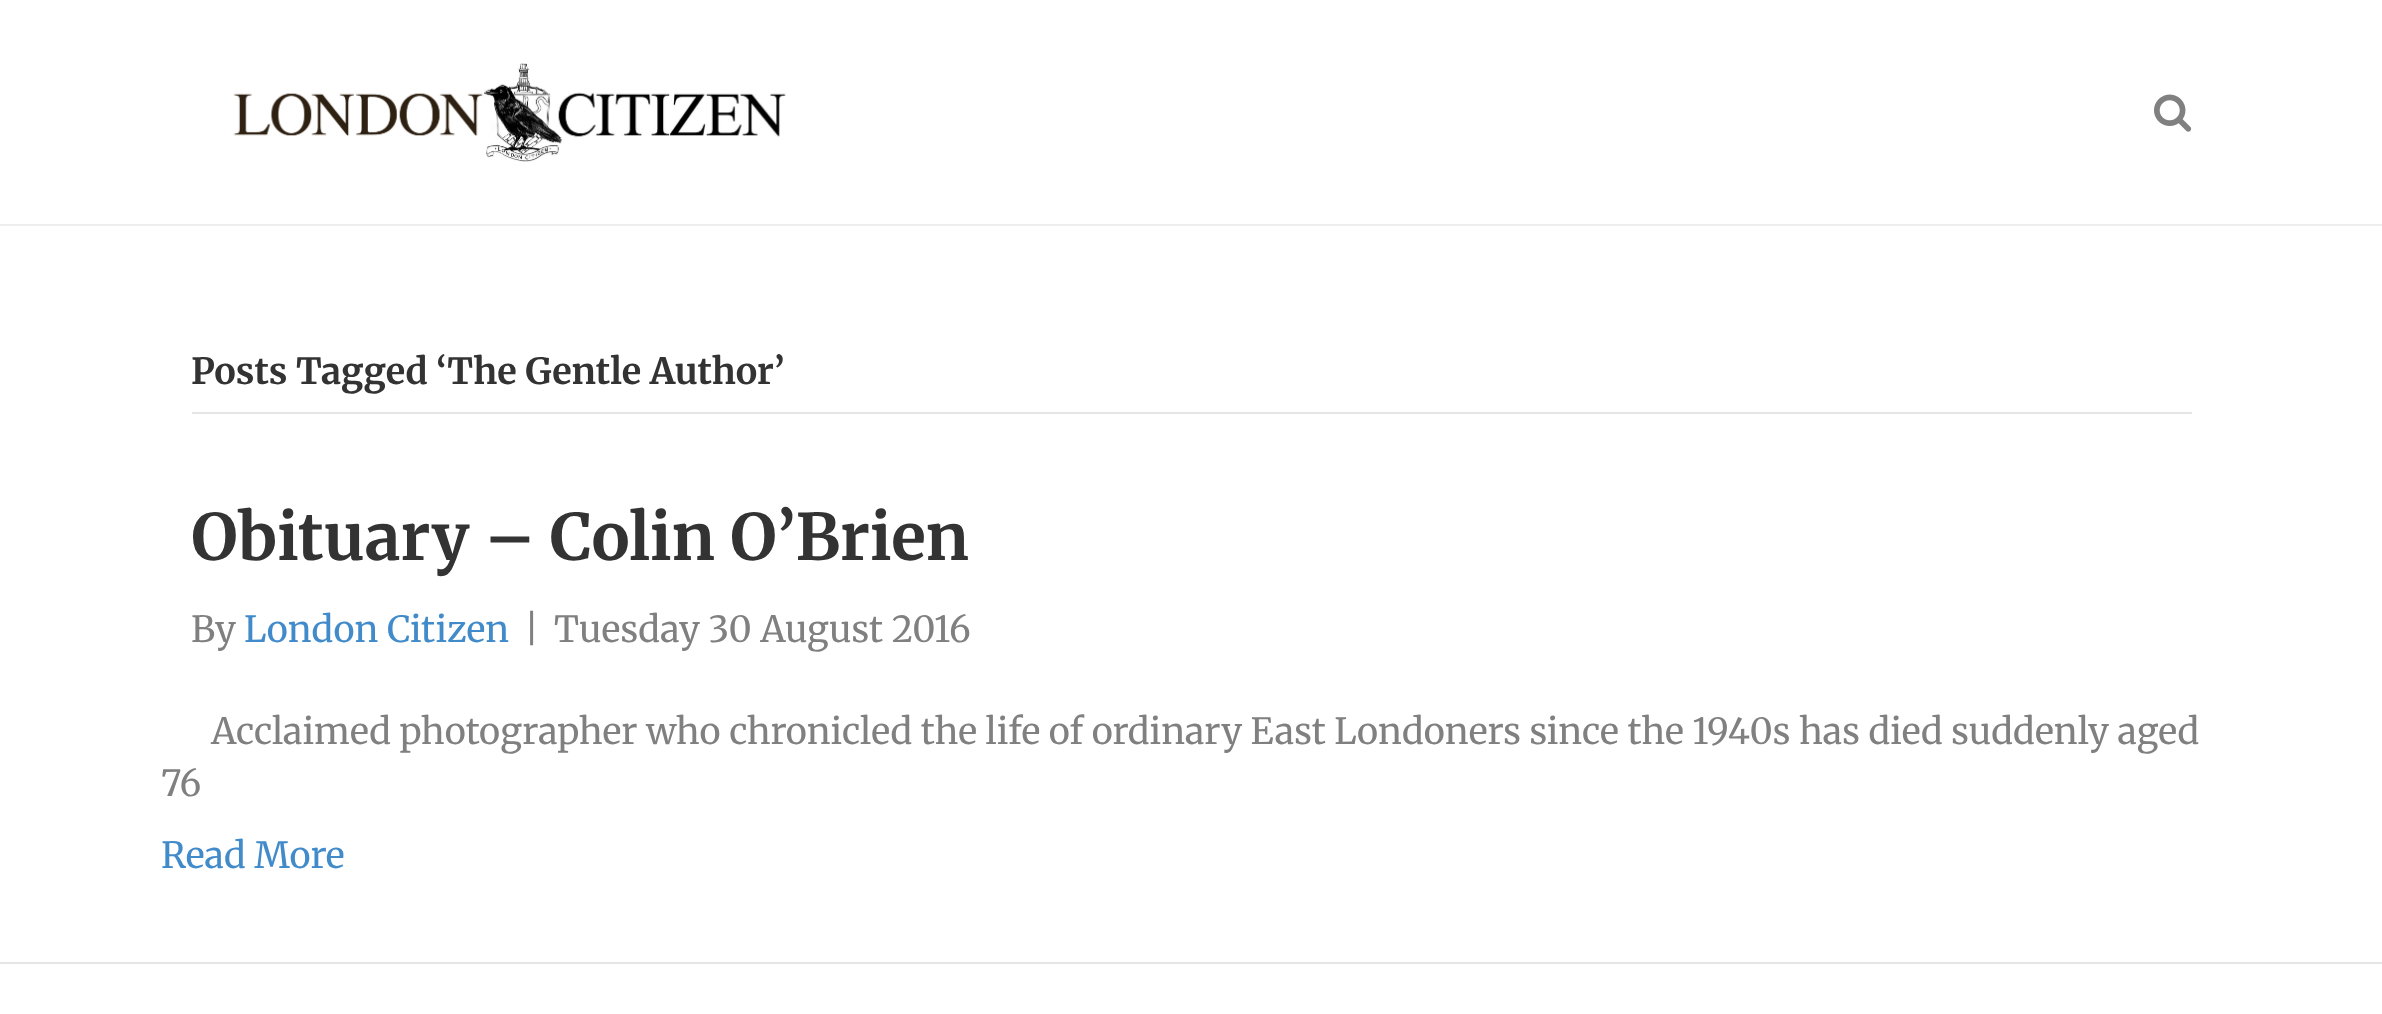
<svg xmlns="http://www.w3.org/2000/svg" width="2382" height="1014">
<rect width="100%" height="100%" fill="#fff"/>
<rect y="224" width="2382" height="2" fill="#eee"/>
<image x="233" y="63" width="553" height="99" href="media/1.png"/>
<image x="2154" y="94" width="38" height="38" href="media/2.png"/>
<rect x="192" y="412" width="2000" height="2" fill="#e6e6e6"/>
<text x="191" y="384" style="font-family:Merriweather;font-size:36px;font-weight:bold;fill:#333">Posts Tagged ‘The Gentle Author’</text>
<text x="191" y="560" style="font-family:Merriweather;font-size:64px;font-weight:bold;fill:#333">Obituary – Colin O’Brien</text>
<text x="191" y="642" style="font-family:Merriweather;font-size:36px;fill:#808080">By</text>
<text x="244" y="642" style="font-family:Merriweather;font-size:36px;fill:#428bca">London Citizen</text>
<text x="524" y="642" style="font-family:Merriweather;font-size:36px;fill:#808080">|</text>
<text x="554" y="642" style="font-family:Merriweather;font-size:36px;fill:#808080">Tuesday 30 August 2016</text>
<text x="211" y="744" style="font-family:Merriweather;font-size:36px;fill:#808080">Acclaimed photographer who chronicled the life of ordinary East Londoners since the 1940s has died suddenly aged</text>
<text x="161" y="796" style="font-family:Merriweather;font-size:36px;fill:#808080">76</text>
<text x="161" y="868" style="font-family:Merriweather;font-size:36px;fill:#428bca">Read More</text>
<rect y="962" width="2382" height="2" fill="#e6e6e6"/>
</svg>
